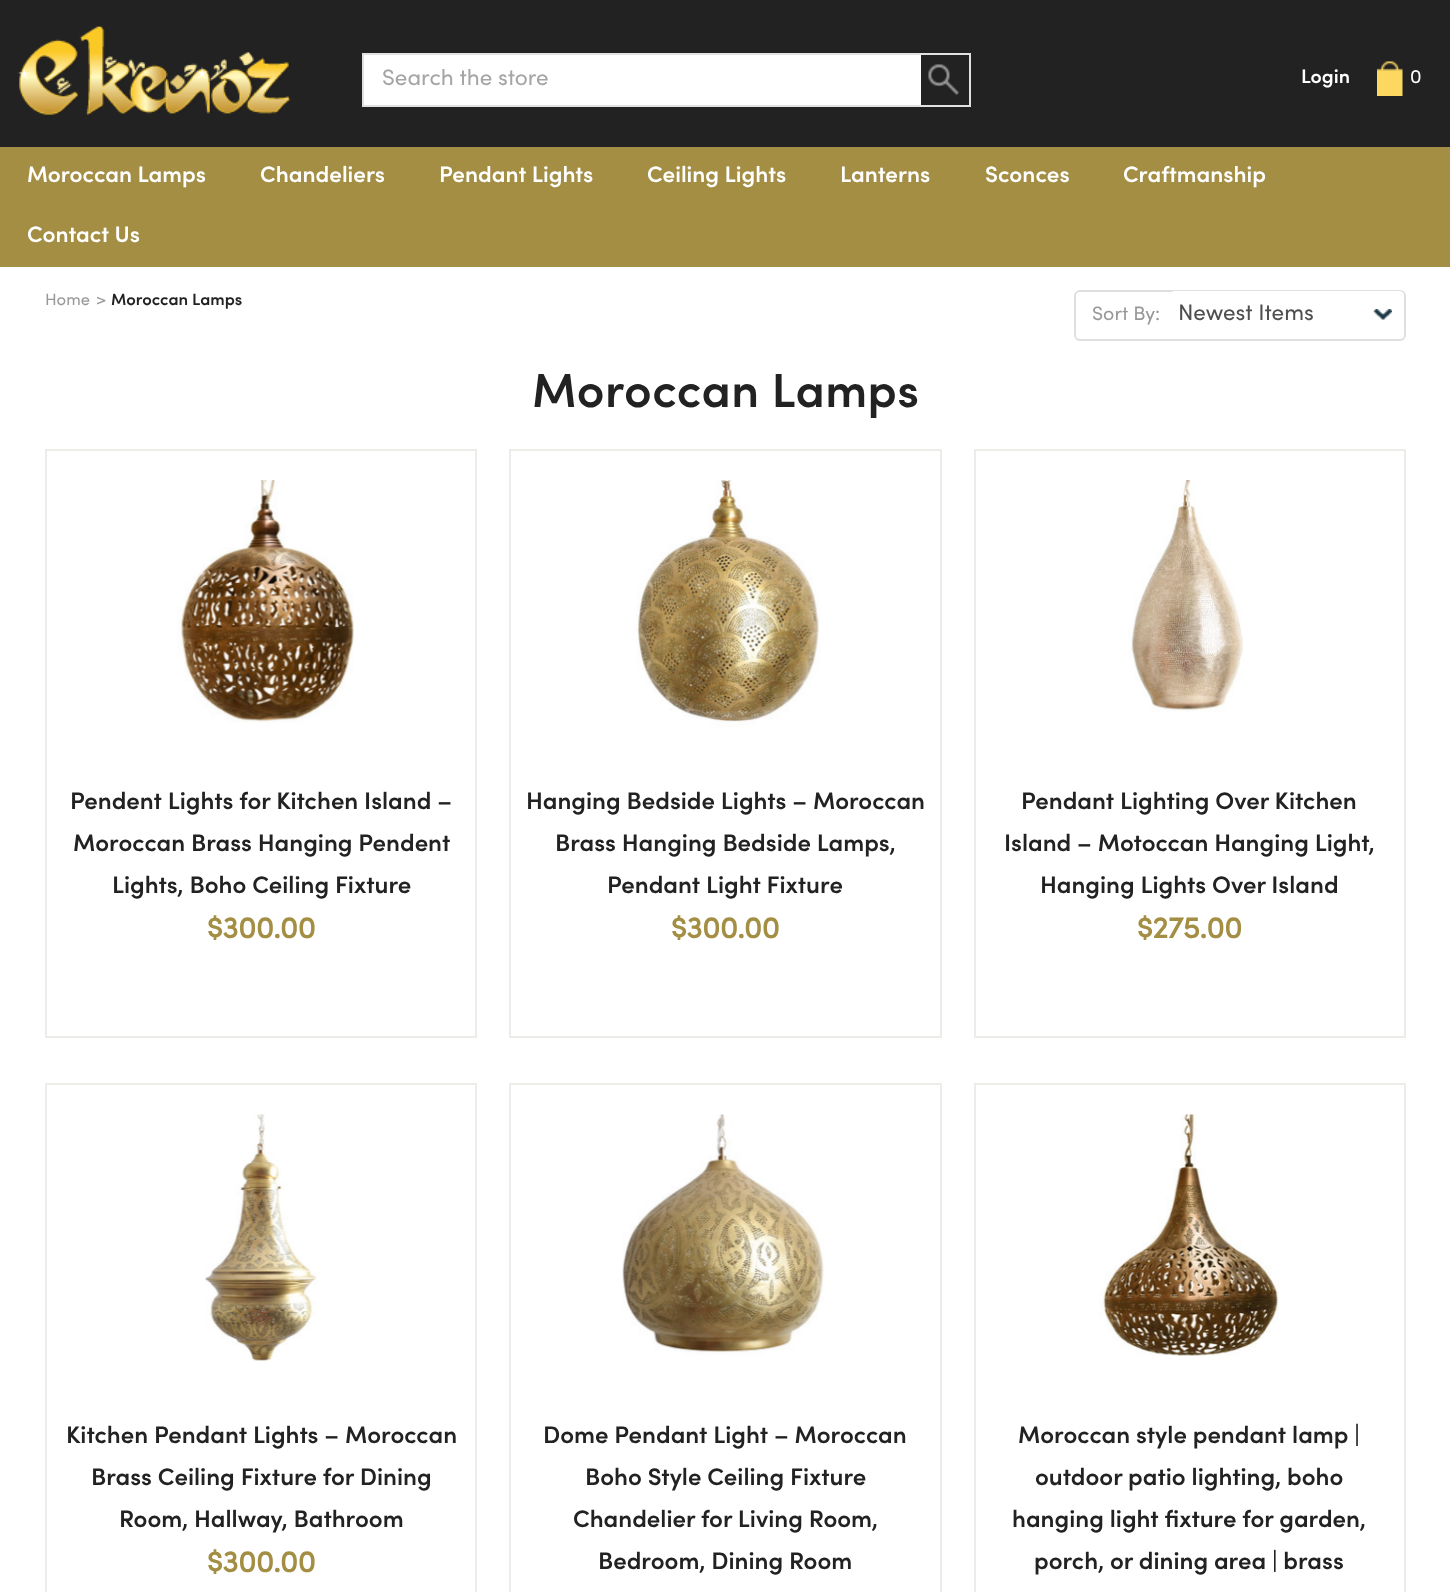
<svg xmlns="http://www.w3.org/2000/svg" width="1450" height="1592">
<defs>
<clipPath id="clip1"><rect x="383" y="69" width="519" height="23"/></clipPath>
</defs>
<rect width="100%" height="100%" fill="#fff"/>
<rect width="1450" height="147" fill="#222"/>
<image x="17" y="26" width="274" height="89" href="media/1.png"/>
<rect x="364" y="55" width="557" height="50" fill="#fff"/>
<rect x="362" y="53" width="609" height="2" fill="#e1e1e1"/>
<rect x="362" y="105" width="559" height="2" fill="#e1e1e1"/>
<rect x="362" y="53" width="2" height="54" fill="#e1e1e1"/>
<g clip-path="url(#clip1)">
<text x="382" y="85" style="font-family:Sofia;font-size:22.5px;fill:#a5a5a5">Search the store</text>
</g>
<image x="928" y="64" width="31" height="31" href="media/2.png"/>
<rect x="969" y="53" width="2" height="54" fill="#e1e1e1"/>
<rect x="921" y="105" width="50" height="2" fill="#e1e1e1"/>
<text x="1301" y="83" style="font-family:Sofia;font-size:19.5px;font-weight:600;fill:#fff">Login</text>
<image x="1377" y="61" width="26" height="35" href="media/3.png"/>
<text x="1410" y="83" style="font-family:Sofia;font-size:19.5px;fill:#fff">0</text>
<rect y="147" width="1450" height="120" fill="#a38e44"/>
<text x="27" y="182" style="font-family:Sofia;font-size:22.5px;font-weight:600;fill:#fff">Moroccan Lamps</text>
<text x="260" y="182" style="font-family:Sofia;font-size:22.5px;font-weight:600;fill:#fff">Chandeliers</text>
<text x="439" y="182" style="font-family:Sofia;font-size:22.5px;font-weight:600;fill:#fff">Pendant Lights</text>
<text x="647" y="182" style="font-family:Sofia;font-size:22.5px;font-weight:600;fill:#fff">Ceiling Lights</text>
<text x="840" y="182" style="font-family:Sofia;font-size:22.5px;font-weight:600;fill:#fff">Lanterns</text>
<text x="985" y="182" style="font-family:Sofia;font-size:22.5px;font-weight:600;fill:#fff">Sconces</text>
<text x="1123" y="182" style="font-family:Sofia;font-size:22.5px;font-weight:600;fill:#fff">Craftmanship</text>
<text x="27" y="242" style="font-family:Sofia;font-size:22.5px;font-weight:600;fill:#fff">Contact Us</text>
<text x="45" y="305" style="font-family:Sofia;font-size:16.5px;fill:#989898">Home</text>
<text x="96" y="305" style="font-family:Sofia;font-size:16.5px;fill:#989898">&gt;</text>
<text x="111" y="305" style="font-family:Sofia;font-size:16.5px;font-weight:600;fill:#222">Moroccan Lamps</text>
<rect x="1075" y="291" width="330" height="49" rx="5" fill="none" stroke="#dfdfdf" stroke-width="2"/>
<text x="1092" y="320" style="font-family:Sofia;font-size:19.5px;fill:#989898">Sort By:</text>
<path d="M1173 291h226c3 0 5 2 5 5v38c0 3-2 5-5 5h-226z" fill="#fff"/>
<image x="1373" y="309" width="19" height="11" href="media/4.png"/>
<text x="1178" y="320" style="font-family:Sofia;font-size:22.5px;fill:#4f4f4f">Newest Items</text>
<text x="532" y="407" style="font-family:Sofia;font-size:48px;font-weight:600;letter-spacing:0.4px;fill:#222">Moroccan Lamps</text>
<rect x="46" y="450" width="430" height="587" fill="none" stroke="#eeece8" stroke-width="2"/>
<image x="177" y="480" width="177" height="243" href="media/5.png"/>
<text x="70" y="809" style="font-family:Sofia;font-size:24px;font-weight:600;fill:#222">Pendent Lights for Kitchen Island –</text>
<text x="73" y="851" style="font-family:Sofia;font-size:24px;font-weight:600;fill:#222">Moroccan Brass Hanging Pendent</text>
<text x="112" y="893" style="font-family:Sofia;font-size:24px;font-weight:600;fill:#222">Lights, Boho Ceiling Fixture</text>
<text x="207" y="938" style="font-family:Sofia;font-size:30px;font-weight:bold;fill:#a38e44">$300.00</text>
<rect x="510" y="450" width="431" height="587" fill="none" stroke="#eeece8" stroke-width="2"/>
<image x="636" y="480" width="184" height="247" href="media/6.png"/>
<text x="526" y="809" style="font-family:Sofia;font-size:24px;font-weight:600;fill:#222">Hanging Bedside Lights – Moroccan</text>
<text x="555" y="851" style="font-family:Sofia;font-size:24px;font-weight:600;fill:#222">Brass Hanging Bedside Lamps,</text>
<text x="607" y="893" style="font-family:Sofia;font-size:24px;font-weight:600;fill:#222">Pendant Light Fixture</text>
<text x="671" y="938" style="font-family:Sofia;font-size:30px;font-weight:bold;fill:#a38e44">$300.00</text>
<rect x="975" y="450" width="430" height="587" fill="none" stroke="#eeece8" stroke-width="2"/>
<image x="1128" y="480" width="116" height="232" href="media/7.png"/>
<text x="1021" y="809" style="font-family:Sofia;font-size:24px;font-weight:600;fill:#222">Pendant Lighting Over Kitchen</text>
<text x="1004" y="851" style="font-family:Sofia;font-size:24px;font-weight:600;fill:#222">Island – Motoccan Hanging Light,</text>
<text x="1040" y="893" style="font-family:Sofia;font-size:24px;font-weight:600;fill:#222">Hanging Lights Over Island</text>
<text x="1137" y="938" style="font-family:Sofia;font-size:30px;font-weight:bold;fill:#a38e44">$275.00</text>
<rect x="46" y="1084" width="430" height="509" fill="none" stroke="#eeece8" stroke-width="2"/>
<image x="205" y="1114" width="113" height="247" href="media/8.png"/>
<text x="66" y="1443" style="font-family:Sofia;font-size:24px;font-weight:600;fill:#222">Kitchen Pendant Lights – Moroccan</text>
<text x="91" y="1485" style="font-family:Sofia;font-size:24px;font-weight:600;fill:#222">Brass Ceiling Fixture for Dining</text>
<text x="119" y="1527" style="font-family:Sofia;font-size:24px;font-weight:600;fill:#222">Room, Hallway, Bathroom</text>
<text x="207" y="1572" style="font-family:Sofia;font-size:30px;font-weight:bold;fill:#a38e44">$300.00</text>
<rect x="510" y="1084" width="431" height="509" fill="none" stroke="#eeece8" stroke-width="2"/>
<image x="622" y="1114" width="202" height="243" href="media/9.png"/>
<text x="543" y="1443" style="font-family:Sofia;font-size:24px;font-weight:600;fill:#222">Dome Pendant Light – Moroccan</text>
<text x="585" y="1485" style="font-family:Sofia;font-size:24px;font-weight:600;fill:#222">Boho Style Ceiling Fixture</text>
<text x="573" y="1527" style="font-family:Sofia;font-size:24px;font-weight:600;fill:#222">Chandelier for Living Room,</text>
<text x="598" y="1569" style="font-family:Sofia;font-size:24px;font-weight:600;fill:#222">Bedroom, Dining Room</text>
<rect x="975" y="1084" width="430" height="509" fill="none" stroke="#eeece8" stroke-width="2"/>
<image x="1099" y="1114" width="180" height="242" href="media/10.png"/>
<text x="1018" y="1443" style="font-family:Sofia;font-size:24px;font-weight:600;fill:#222">Moroccan style pendant lamp |</text>
<text x="1035" y="1485" style="font-family:Sofia;font-size:24px;font-weight:600;fill:#222">outdoor patio lighting, boho</text>
<text x="1012" y="1527" style="font-family:Sofia;font-size:24px;font-weight:600;fill:#222">hanging light fixture for garden,</text>
<text x="1034" y="1569" style="font-family:Sofia;font-size:24px;font-weight:600;fill:#222">porch, or dining area | brass</text>
</svg>
